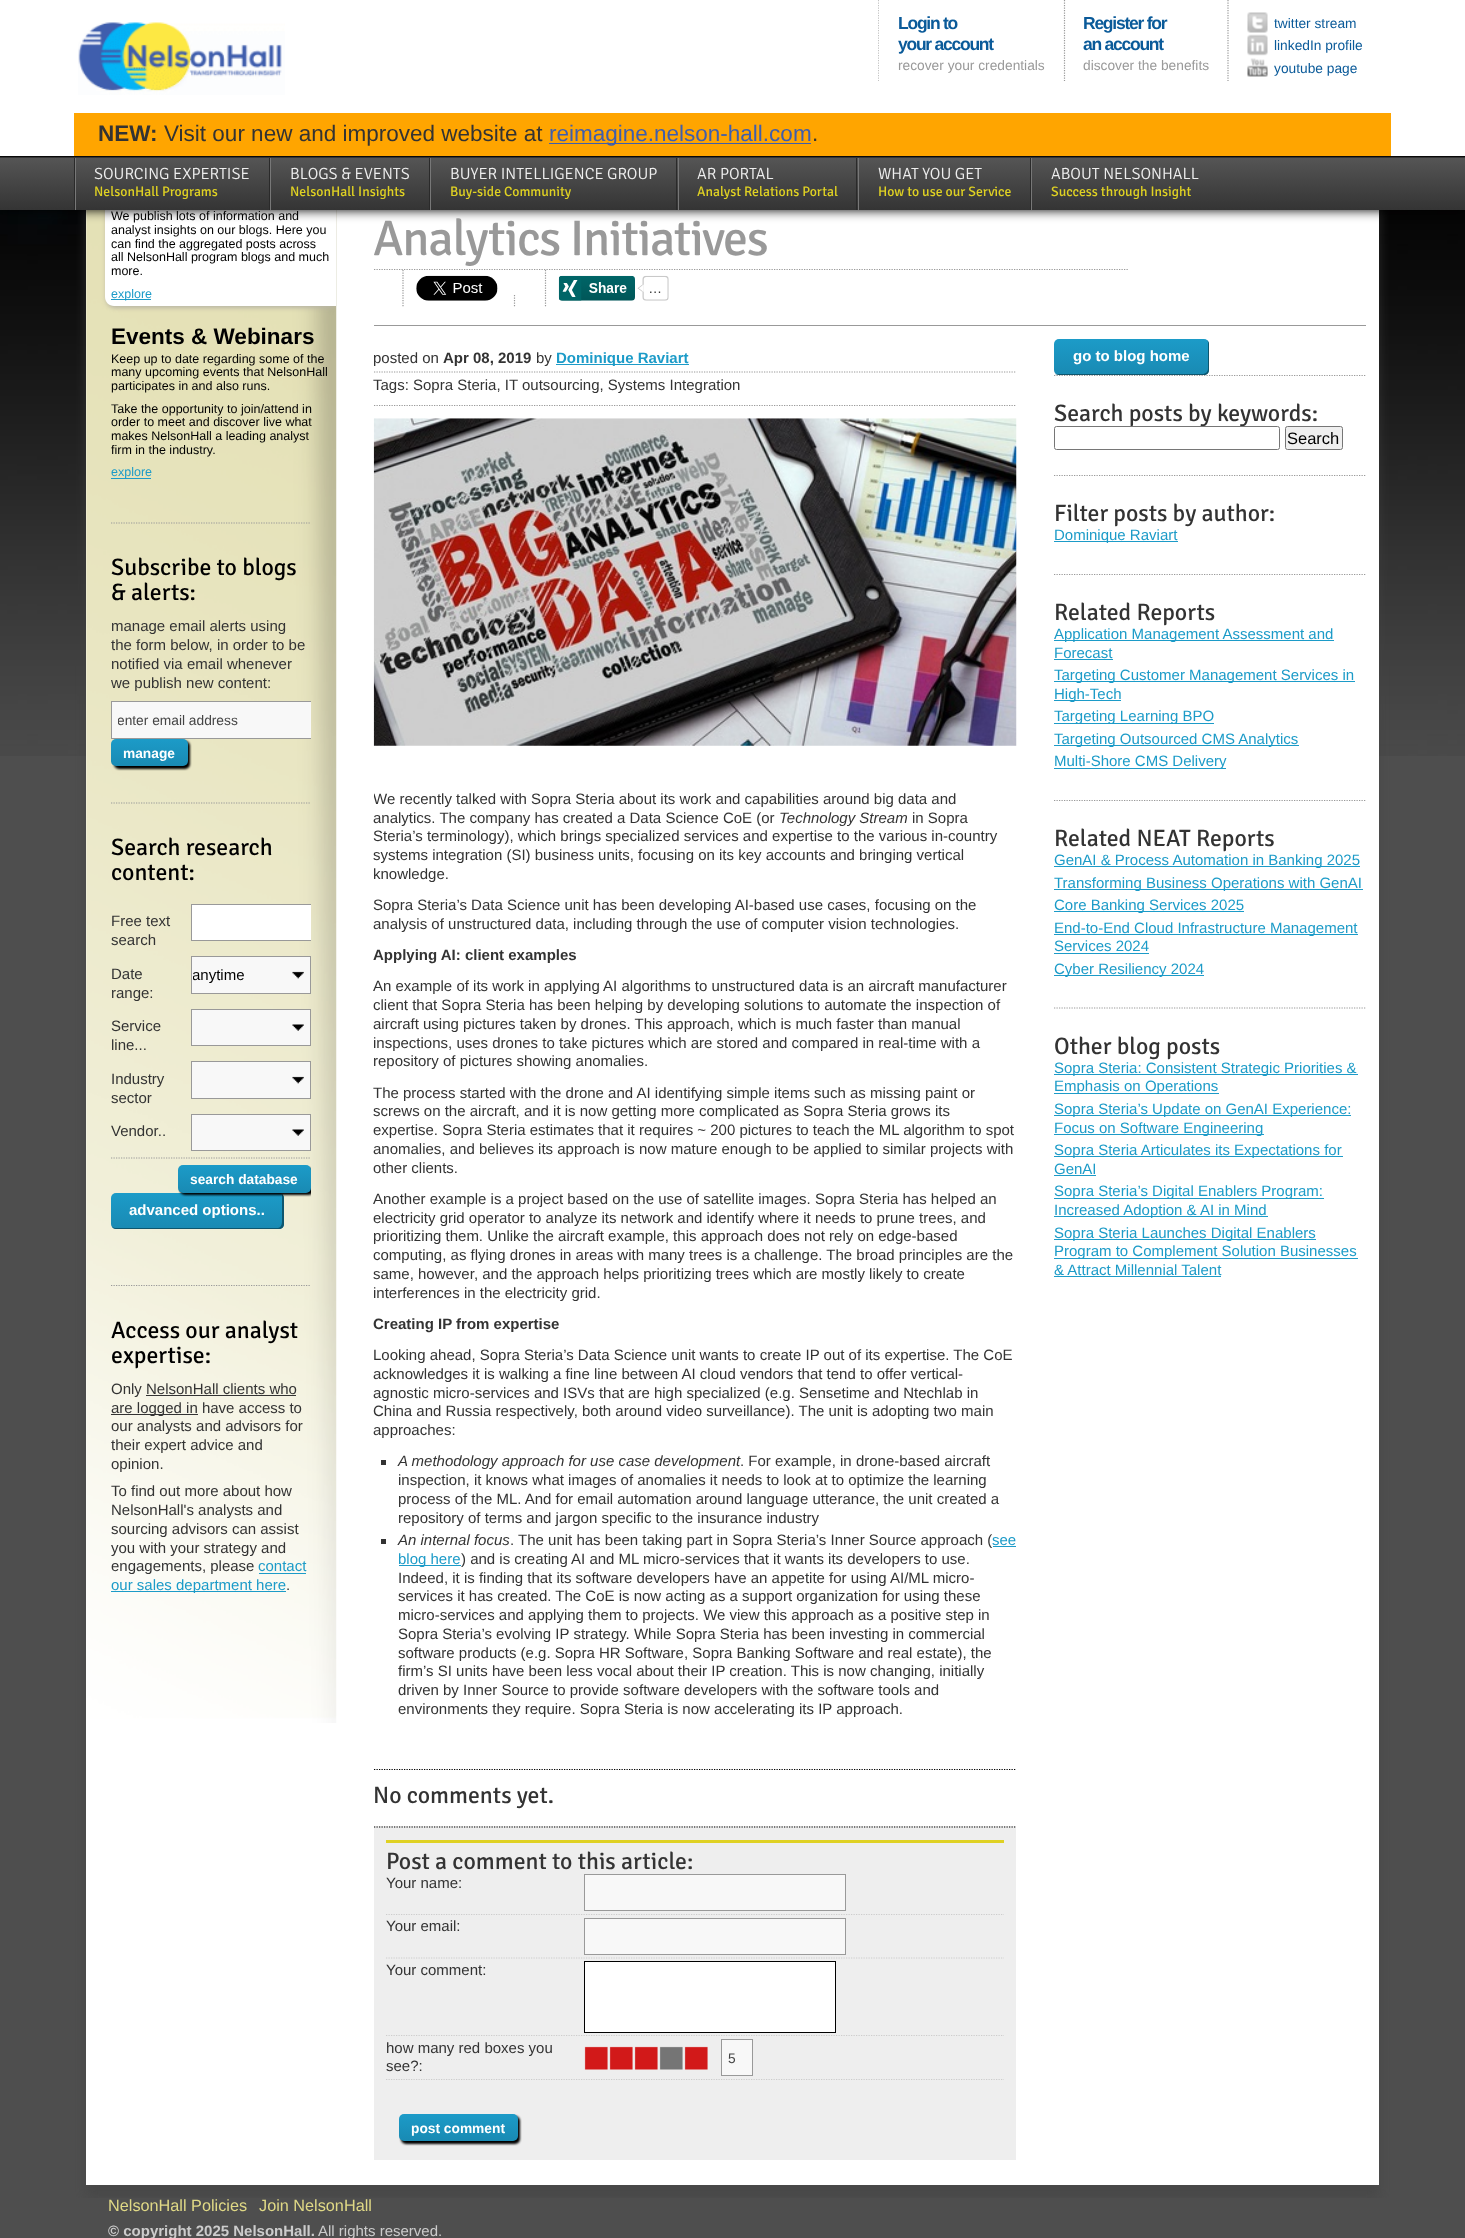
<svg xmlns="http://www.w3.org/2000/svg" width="1465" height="2238">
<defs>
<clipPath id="clip1"><rect x="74" y="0" width="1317" height="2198"/></clipPath>
<clipPath id="clip2"><rect x="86" y="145" width="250" height="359"/></clipPath>
<clipPath id="clip3"><rect x="878" width="513" height="81"/></clipPath>
<linearGradient id="g1" gradientUnits="userSpaceOnUse" x1="0" y1="105" x2="0" y2="158"><stop offset="0" stop-color="#555"/><stop offset="1" stop-color="#343434"/></linearGradient>
<linearGradient id="g2" gradientUnits="userSpaceOnUse" x1="0" y1="158" x2="0" y2="210"><stop offset="0" stop-color="#555"/><stop offset="1" stop-color="#343434"/></linearGradient>
<clipPath id="clip4"><rect x="111" y="701" width="200" height="68"/></clipPath>
<clipPath id="clip5"><rect x="118" y="708" width="193" height="25"/></clipPath>
<linearGradient id="g3" gradientUnits="userSpaceOnUse" x1="111" y1="739" x2="111" y2="766"><stop offset="0" stop-color="#1c9bc8"/><stop offset="1" stop-color="#198ab3"/></linearGradient>
<clipPath id="clip6"><rect x="191" y="904" width="120" height="37"/></clipPath>
<clipPath id="clip7"><rect x="191" y="956" width="119" height="38"/></clipPath>
<clipPath id="clip8"><rect x="193" y="958" width="117" height="35"/></clipPath>
<clipPath id="clip9"><rect x="191" y="1009" width="119" height="37"/></clipPath>
<clipPath id="clip10"><rect x="191" y="1061" width="119" height="38"/></clipPath>
<clipPath id="clip11"><rect x="191" y="1114" width="119" height="37"/></clipPath>
<linearGradient id="g4" gradientUnits="userSpaceOnUse" x1="111" y1="1193" x2="111" y2="1229"><stop offset="0" stop-color="#1c9bc8"/><stop offset="1" stop-color="#198ab3"/></linearGradient>
<clipPath id="clip12"><rect x="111" y="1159" width="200" height="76"/></clipPath>
<linearGradient id="g5" gradientUnits="userSpaceOnUse" x1="178" y1="1165" x2="178" y2="1193"><stop offset="0" stop-color="#1c9bc8"/><stop offset="1" stop-color="#198ab3"/></linearGradient>
<clipPath id="clip13"><rect x="374" y="419" width="642" height="1325"/></clipPath>
<linearGradient id="g6" gradientUnits="userSpaceOnUse" x1="399" y1="2114" x2="399" y2="2141"><stop offset="0" stop-color="#1c9bc8"/><stop offset="1" stop-color="#198ab3"/></linearGradient>
<linearGradient id="g7" gradientUnits="userSpaceOnUse" x1="1054" y1="339" x2="1054" y2="375"><stop offset="0" stop-color="#1c9bc8"/><stop offset="1" stop-color="#198ab3"/></linearGradient>
<clipPath id="clip14"><rect x="108" y="2198" width="1250" height="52"/></clipPath>
</defs>
<rect width="100%" height="100%" fill="#4e4e4e"/>
<image x="0" y="210" width="1465" height="546" href="media/1.png"/>
<g clip-path="url(#clip1)">
<rect x="86" y="113" width="1293" height="2085" fill="#44444499" filter="blur(6px)"/>
</g>
<rect x="86" y="210" width="1293" height="1975" fill="#fff"/>
<image x="86" y="210" width="251" height="1513" href="media/6.png"/>
<g clip-path="url(#clip2)">
<rect x="106" y="178" width="232" height="130" rx="9" fill="#b7b4a3" filter="blur(2px)"/>
</g>
<path d="M114 176h222v130h-222c-5 0-9-4-9-9v-112c0-5 4-9 9-9z" fill="#fff"/>
<rect width="1465" height="210" fill="#000" filter="blur(6px)"/>
<rect width="1465" height="156" fill="#fff"/>
<image x="78" y="22" width="207" height="73" href="media/2.png"/>
<g clip-path="url(#clip3)">
<path d="M878 0v81" fill="none" stroke="#999" stroke-width="1.2" stroke-dasharray="1.25 1.25"/>
</g>
<text x="898" y="29" style="font-family:Liberation Sans;font-size:17.5px;font-weight:bold;letter-spacing:-1.25px;fill:#0a5a99">Login to</text>
<text x="898" y="50" style="font-family:Liberation Sans;font-size:17.5px;font-weight:bold;letter-spacing:-1.25px;fill:#0a5a99">your account</text>
<text x="898" y="70" style="font-family:Liberation Sans;font-size:13.75px;fill:#999">recover your credentials</text>
<path d="M1064.5 0v81" fill="none" stroke="#999" stroke-width="1.2" stroke-dasharray="1.25 1.25"/>
<text x="1083" y="29" style="font-family:Liberation Sans;font-size:17.5px;font-weight:bold;letter-spacing:-1.25px;fill:#0a5a99">Register for</text>
<text x="1083" y="50" style="font-family:Liberation Sans;font-size:17.5px;font-weight:bold;letter-spacing:-1.25px;fill:#0a5a99">an account</text>
<text x="1083" y="70" style="font-family:Liberation Sans;font-size:13.75px;fill:#999">discover the benefits</text>
<path d="M1228 0v81" fill="none" stroke="#999" stroke-width="1.2" stroke-dasharray="1.25 1.25"/>
<image x="1247" y="12" width="21" height="21" href="media/3.png"/>
<text x="1274" y="28" style="font-family:Liberation Sans;font-size:13.75px;fill:#0a5a99">twitter stream</text>
<image x="1247" y="34" width="21" height="22" href="media/4.png"/>
<text x="1274" y="50" style="font-family:Liberation Sans;font-size:13.75px;fill:#0a5a99">linkedIn profile</text>
<image x="1247" y="58" width="21" height="19" href="media/5.png"/>
<text x="1274" y="73" style="font-family:Liberation Sans;font-size:13.75px;fill:#0a5a99">youtube page</text>
<rect x="74" y="113" width="1317" height="43" fill="#ffa500"/>
<text x="98" y="141" style="font-family:Liberation Sans;font-size:22.5px;font-weight:bold;fill:#333">NEW:</text>
<text x="164" y="141" style="font-family:Liberation Sans;font-size:22.5px;fill:#333">Visit our new and improved website at</text>
<rect x="549" y="143" width="262" height="1" fill="#3f5ead"/>
<text x="549" y="141" style="font-family:Liberation Sans;font-size:22.5px;fill:#3f5ead">reimagine.nelson-hall.com</text>
<text x="812" y="141" style="font-family:Liberation Sans;font-size:22.5px;fill:#333">.</text>
<rect y="157" width="1465" height="1" fill="url(#g1)"/>
<rect y="158" width="1465" height="52" fill="url(#g2)"/>
<rect y="156" width="1465" height="1" fill="#090909"/>
<rect x="74" y="158" width="1" height="52" fill="#2a2a2a"/>
<rect x="269" y="158" width="1" height="52" fill="#2a2a2a"/>
<rect x="75" y="158" width="1" height="52" fill="#777"/>
<text x="94" y="179" style="font-family:Signika;font-size:16.25px;font-weight:300;fill:#eee">SOURCING EXPERTISE</text>
<text x="94" y="196" style="font-family:Signika;font-size:13.75px;fill:#dfd123">NelsonHall Programs</text>
<rect x="429" y="158" width="1" height="52" fill="#2a2a2a"/>
<rect x="270" y="158" width="1" height="52" fill="#777"/>
<text x="290" y="179" style="font-family:Signika;font-size:16.25px;font-weight:300;fill:#eee">BLOGS &amp; EVENTS</text>
<text x="290" y="196" style="font-family:Signika;font-size:13.75px;fill:#dfd123">NelsonHall Insights</text>
<rect x="676" y="158" width="1" height="52" fill="#2a2a2a"/>
<rect x="430" y="158" width="1" height="52" fill="#777"/>
<text x="450" y="179" style="font-family:Signika;font-size:16.25px;font-weight:300;fill:#eee">BUYER INTELLIGENCE GROUP</text>
<text x="450" y="196" style="font-family:Signika;font-size:13.75px;fill:#dfd123">Buy-side Community</text>
<rect x="856" y="158" width="1" height="52" fill="#2a2a2a"/>
<rect x="678" y="158" width="1" height="52" fill="#777"/>
<text x="697" y="179" style="font-family:Signika;font-size:16.25px;font-weight:300;fill:#eee">AR PORTAL</text>
<text x="697" y="196" style="font-family:Signika;font-size:13.75px;fill:#dfd123">Analyst Relations Portal</text>
<rect x="1030" y="158" width="1" height="52" fill="#2a2a2a"/>
<rect x="858" y="158" width="1" height="52" fill="#777"/>
<text x="878" y="179" style="font-family:Signika;font-size:16.25px;font-weight:300;fill:#eee">WHAT YOU GET</text>
<text x="878" y="196" style="font-family:Signika;font-size:13.75px;fill:#dfd123">How to use our Service</text>
<rect x="1031" y="158" width="1" height="52" fill="#777"/>
<text x="1051" y="179" style="font-family:Signika;font-size:16.25px;font-weight:300;fill:#eee">ABOUT NELSONHALL</text>
<text x="1051" y="196" style="font-family:Signika;font-size:13.75px;fill:#dfd123">Success through Insight</text>
<text x="111" y="220" style="font-family:Liberation Sans;font-size:12.5px;fill:#000">We publish lots of information and</text>
<text x="111" y="234" style="font-family:Liberation Sans;font-size:12.5px;fill:#000">analyst insights on our blogs. Here you</text>
<text x="111" y="248" style="font-family:Liberation Sans;font-size:12.5px;fill:#000">can find the aggregated posts across</text>
<text x="111" y="261" style="font-family:Liberation Sans;font-size:12.5px;fill:#000">all NelsonHall program blogs and much</text>
<text x="111" y="275" style="font-family:Liberation Sans;font-size:12.5px;fill:#000">more.</text>
<rect x="111" y="299" width="40" height="1" fill="#1c9bc8"/>
<text x="111" y="298" style="font-family:Liberation Sans;font-size:12.5px;fill:#1c9bc8">explore</text>
<text x="111" y="344" style="font-family:Liberation Sans;font-size:22.5px;font-weight:bold;fill:#000">Events &amp; Webinars</text>
<text x="111" y="363" style="font-family:Liberation Sans;font-size:12.5px;fill:#000">Keep up to date regarding some of the</text>
<text x="111" y="376" style="font-family:Liberation Sans;font-size:12.5px;fill:#000">many upcoming events that NelsonHall</text>
<text x="111" y="390" style="font-family:Liberation Sans;font-size:12.5px;fill:#000">participates in and also runs.</text>
<text x="111" y="413" style="font-family:Liberation Sans;font-size:12.5px;fill:#000">Take the opportunity to join/attend in</text>
<text x="111" y="426" style="font-family:Liberation Sans;font-size:12.5px;fill:#000">order to meet and discover live what</text>
<text x="111" y="440" style="font-family:Liberation Sans;font-size:12.5px;fill:#000">makes NelsonHall a leading analyst</text>
<text x="111" y="454" style="font-family:Liberation Sans;font-size:12.5px;fill:#000">firm in the industry.</text>
<rect x="111" y="478" width="40" height="1" fill="#1c9bc8"/>
<text x="111" y="476" style="font-family:Liberation Sans;font-size:12.5px;fill:#1c9bc8">explore</text>
<path d="M111 523h200" fill="none" stroke="#999" stroke-width="1.2" stroke-dasharray="1.25 1.25"/>
<text x="111" y="575" style="font-family:Signika;font-size:23.75px;fill:#000">Subscribe to blogs</text>
<text x="111" y="600" style="font-family:Signika;font-size:23.75px;fill:#000">&amp; alerts:</text>
<text x="111" y="631" style="font-family:Liberation Sans;font-size:15px;fill:#333">manage email alerts using</text>
<text x="111" y="650" style="font-family:Liberation Sans;font-size:15px;fill:#333">the form below, in order to be</text>
<text x="111" y="669" style="font-family:Liberation Sans;font-size:15px;fill:#333">notified via email whenever</text>
<text x="111" y="688" style="font-family:Liberation Sans;font-size:15px;fill:#333">we publish new content:</text>
<rect x="112" y="702" width="199" height="36" fill="#f8f8f8"/>
<g clip-path="url(#clip4)">
<rect x="111.5" y="701.5" width="262" height="37" fill="none" stroke="#999"/>
</g>
<g clip-path="url(#clip5)">
<text x="117" y="725" style="font-family:Liberation Sans;font-size:13.75px;fill:#444">enter email address</text>
</g>
<rect x="114" y="741" width="76" height="28" rx="5" fill="#000" filter="blur(1px)"/>
<rect x="111" y="739" width="77" height="27" rx="5" fill="url(#g3)"/>
<text x="123" y="758" style="font-family:Liberation Sans;font-size:13.75px;font-weight:bold;fill:#fff">manage</text>
<path d="M111 803h200" fill="none" stroke="#999" stroke-width="1.2" stroke-dasharray="1.25 1.25"/>
<text x="111" y="855" style="font-family:Signika;font-size:23.75px;fill:#000">Search research</text>
<text x="111" y="880" style="font-family:Signika;font-size:23.75px;fill:#000">content:</text>
<text x="111" y="926" style="font-family:Liberation Sans;font-size:15px;fill:#333">Free text</text>
<text x="111" y="945" style="font-family:Liberation Sans;font-size:15px;fill:#333">search</text>
<rect x="192" y="905" width="119" height="35" fill="#fff"/>
<g clip-path="url(#clip6)">
<rect x="191.5" y="904.5" width="262" height="36" fill="none" stroke="#999"/>
</g>
<text x="111" y="979" style="font-family:Liberation Sans;font-size:15px;fill:#333">Date</text>
<text x="111" y="998" style="font-family:Liberation Sans;font-size:15px;fill:#333">range:</text>
<rect x="192" y="957" width="118" height="36" fill="#f8f8f8"/>
<image x="292" y="971" width="12" height="8" href="media/7.png"/>
<rect x="310" y="956" width="1" height="38" fill="#999"/>
<g clip-path="url(#clip7)">
<rect x="191.5" y="956.5" width="144" height="37" fill="none" stroke="#999"/>
</g>
<g clip-path="url(#clip8)">
<text x="192" y="980" style="font-family:Liberation Sans;font-size:15px;fill:#000">anytime</text>
</g>
<text x="111" y="1031" style="font-family:Liberation Sans;font-size:15px;fill:#333">Service</text>
<text x="111" y="1050" style="font-family:Liberation Sans;font-size:15px;fill:#333">line...</text>
<rect x="192" y="1010" width="118" height="35" fill="#f8f8f8"/>
<image x="292" y="1024" width="12" height="7" href="media/8.png"/>
<rect x="310" y="1009" width="1" height="37" fill="#999"/>
<g clip-path="url(#clip9)">
<rect x="191.5" y="1009.5" width="144" height="36" fill="none" stroke="#999"/>
</g>
<text x="111" y="1084" style="font-family:Liberation Sans;font-size:15px;fill:#333">Industry</text>
<text x="111" y="1103" style="font-family:Liberation Sans;font-size:15px;fill:#333">sector</text>
<rect x="192" y="1062" width="118" height="36" fill="#f8f8f8"/>
<image x="292" y="1076" width="12" height="8" href="media/7.png"/>
<rect x="310" y="1061" width="1" height="38" fill="#999"/>
<g clip-path="url(#clip10)">
<rect x="191.5" y="1061.5" width="144" height="37" fill="none" stroke="#999"/>
</g>
<text x="111" y="1136" style="font-family:Liberation Sans;font-size:15px;fill:#333">Vendor..</text>
<rect x="192" y="1115" width="118" height="35" fill="#f8f8f8"/>
<image x="292" y="1129" width="12" height="7" href="media/8.png"/>
<rect x="310" y="1114" width="1" height="37" fill="#999"/>
<g clip-path="url(#clip11)">
<rect x="191.5" y="1114.5" width="144" height="36" fill="none" stroke="#999"/>
</g>
<path d="M111 1158h200" fill="none" stroke="#999" stroke-width="1.2" stroke-dasharray="1.25 1.25"/>
<rect x="111" y="1193" width="173" height="36" rx="5" fill="url(#g4)"/>
<path d="M112 1226c0 2 2 3 4 3h163c3 0 5-2 5-5v-26c0-2-1-3-2-4v2v26c0 3-2 6-4 6h-163c-1 0-3-1-3-2z" fill="#0e566e"/>
<g clip-path="url(#clip12)">
<rect x="180" y="1168" width="134" height="27" rx="5" fill="#000" filter="blur(1px)"/>
</g>
<rect x="178" y="1165" width="133" height="28" rx="5" fill="url(#g5)"/>
<text x="190" y="1184" style="font-family:Liberation Sans;font-size:13.75px;font-weight:bold;fill:#fff">search database</text>
<text x="129" y="1215" style="font-family:Liberation Sans;font-size:15px;font-weight:bold;fill:#fff">advanced options..</text>
<path d="M111 1285.5h200" fill="none" stroke="#999" stroke-width="1.2" stroke-dasharray="1.25 1.25"/>
<text x="111" y="1338" style="font-family:Signika;font-size:23.75px;fill:#000">Access our analyst</text>
<text x="111" y="1363" style="font-family:Signika;font-size:23.75px;fill:#000">expertise:</text>
<text x="111" y="1394" style="font-family:Liberation Sans;font-size:15px;fill:#333">Only NelsonHall clients who</text>
<rect x="111" y="1414" width="87" height="1" fill="#333"/>
<text x="111" y="1413" style="font-family:Liberation Sans;font-size:15px;fill:#333">are logged in have access to</text>
<rect x="146" y="1395" width="150" height="1" fill="#333"/>
<text x="111" y="1431" style="font-family:Liberation Sans;font-size:15px;fill:#333">our analysts and advisors for</text>
<text x="111" y="1450" style="font-family:Liberation Sans;font-size:15px;fill:#333">their expert advice and</text>
<text x="111" y="1469" style="font-family:Liberation Sans;font-size:15px;fill:#333">opinion.</text>
<text x="111" y="1496" style="font-family:Liberation Sans;font-size:15px;fill:#333">To find out more about how</text>
<text x="111" y="1515" style="font-family:Liberation Sans;font-size:15px;fill:#333">NelsonHall's analysts and</text>
<text x="111" y="1534" style="font-family:Liberation Sans;font-size:15px;fill:#333">sourcing advisors can assist</text>
<text x="111" y="1553" style="font-family:Liberation Sans;font-size:15px;fill:#333">you with your strategy and</text>
<text x="111" y="1571" style="font-family:Liberation Sans;font-size:15px;fill:#333">engagements, please</text>
<text x="258" y="1571" style="font-family:Liberation Sans;font-size:15px;fill:#1c9bc8">contact</text>
<rect x="259" y="1573" width="47" height="1" fill="#1c9bc8"/>
<rect x="111" y="1591" width="175" height="1" fill="#1c9bc8"/>
<text x="111" y="1590" style="font-family:Liberation Sans;font-size:15px;fill:#1c9bc8">our sales department here</text>
<text x="286" y="1590" style="font-family:Liberation Sans;font-size:15px;fill:#333">.</text>
<rect x="374" y="325" width="992" height="1" fill="#999"/>
<text x="373" y="255" style="font-family:Signika;font-size:50px;letter-spacing:-1.25px;fill:#999">Analytics Initiatives</text>
<path d="M374 269.5h755" fill="none" stroke="#999" stroke-width="1.2" stroke-dasharray="1.25 1.25"/>
<path d="M403 270v37.5" fill="none" stroke="#999" stroke-width="1.2" stroke-dasharray="1.25 1.25"/>
<image x="416" y="275" width="82" height="26" href="media/9.png"/>
<path d="M514.5 295v12.5m31-37.5v37.5" fill="none" stroke="#999" stroke-width="1.2" stroke-dasharray="1.25 1.25"/>
<image x="558" y="275" width="111" height="26" href="media/10.png"/>
<path d="M374 405.5h642" fill="none" stroke="#999" stroke-width="1.2" stroke-dasharray="1.25 1.25"/>
<text x="373" y="363" style="font-family:Liberation Sans;font-size:15px;fill:#333">posted on</text>
<text x="443" y="363" style="font-family:Liberation Sans;font-size:15px;font-weight:bold;fill:#333">Apr 08, 2019</text>
<text x="536" y="363" style="font-family:Liberation Sans;font-size:15px;fill:#333">by</text>
<rect x="556" y="364" width="133" height="1" fill="#1c9bc8"/>
<text x="556" y="363" style="font-family:Liberation Sans;font-size:15px;font-weight:bold;fill:#1c9bc8">Dominique Raviart</text>
<path d="M374 372h642" fill="none" stroke="#999" stroke-width="1.2" stroke-dasharray="1.25 1.25"/>
<text x="373" y="390" style="font-family:Liberation Sans;font-size:15px;fill:#333">Tags: Sopra Steria, IT outsourcing, Systems Integration</text>
<image x="373" y="418" width="644" height="328" href="media/11.png"/>
<g clip-path="url(#clip13)">
<text x="373" y="804" style="font-family:Liberation Sans;font-size:15px;fill:#333">We recently talked with Sopra Steria about its work and capabilities around big data and</text>
</g>
<text x="373" y="823" style="font-family:Liberation Sans;font-size:15px;fill:#333">analytics. The company has created a Data Science CoE (or</text>
<text x="779" y="823" style="font-family:Liberation Sans;font-size:15px;font-style:italic;fill:#333">Technology Stream</text>
<text x="912" y="823" style="font-family:Liberation Sans;font-size:15px;fill:#333">in Sopra</text>
<text x="373" y="841" style="font-family:Liberation Sans;font-size:15px;fill:#333">Steria’s terminology), which brings specialized services and expertise to the various in-country</text>
<text x="373" y="860" style="font-family:Liberation Sans;font-size:15px;fill:#333">systems integration (SI) business units, focusing on its key accounts and bringing vertical</text>
<text x="373" y="879" style="font-family:Liberation Sans;font-size:15px;fill:#333">knowledge.</text>
<text x="373" y="910" style="font-family:Liberation Sans;font-size:15px;fill:#333">Sopra Steria’s Data Science unit has been developing AI-based use cases, focusing on the</text>
<text x="373" y="929" style="font-family:Liberation Sans;font-size:15px;fill:#333">analysis of unstructured data, including through the use of computer vision technologies.</text>
<text x="373" y="960" style="font-family:Liberation Sans;font-size:15px;font-weight:bold;fill:#333">Applying AI: client examples</text>
<text x="373" y="991" style="font-family:Liberation Sans;font-size:15px;fill:#333">An example of its work in applying AI algorithms to unstructured data is an aircraft manufacturer</text>
<text x="373" y="1010" style="font-family:Liberation Sans;font-size:15px;fill:#333">client that Sopra Steria has been helping by developing solutions to automate the inspection of</text>
<text x="373" y="1029" style="font-family:Liberation Sans;font-size:15px;fill:#333">aircraft using pictures taken by drones. This approach, which is much faster than manual</text>
<text x="373" y="1048" style="font-family:Liberation Sans;font-size:15px;fill:#333">inspections, uses drones to take pictures which are stored and compared in real-time with a</text>
<text x="373" y="1066" style="font-family:Liberation Sans;font-size:15px;fill:#333">repository of pictures showing anomalies.</text>
<text x="373" y="1098" style="font-family:Liberation Sans;font-size:15px;fill:#333">The process started with the drone and AI identifying simple items such as missing paint or</text>
<text x="373" y="1116" style="font-family:Liberation Sans;font-size:15px;fill:#333">screws on the aircraft, and it is now getting more complicated as Sopra Steria grows its</text>
<text x="373" y="1135" style="font-family:Liberation Sans;font-size:15px;fill:#333">expertise. Sopra Steria estimates that it requires ~ 200 pictures to teach the ML algorithm to spot</text>
<text x="373" y="1154" style="font-family:Liberation Sans;font-size:15px;fill:#333">anomalies, and believes its approach is now mature enough to be applied to similar projects with</text>
<text x="373" y="1173" style="font-family:Liberation Sans;font-size:15px;fill:#333">other clients.</text>
<text x="373" y="1204" style="font-family:Liberation Sans;font-size:15px;fill:#333">Another example is a project based on the use of satellite images. Sopra Steria has helped an</text>
<text x="373" y="1223" style="font-family:Liberation Sans;font-size:15px;fill:#333">electricity grid operator to analyze its network and identify where it needs to prune trees, and</text>
<text x="373" y="1241" style="font-family:Liberation Sans;font-size:15px;fill:#333">prioritizing them. Unlike the aircraft example, this approach does not rely on edge-based</text>
<text x="373" y="1260" style="font-family:Liberation Sans;font-size:15px;fill:#333">computing, as flying drones in areas with many trees is a challenge. The broad principles are the</text>
<text x="373" y="1279" style="font-family:Liberation Sans;font-size:15px;fill:#333">same, however, and the approach helps prioritizing trees which are mostly likely to create</text>
<text x="373" y="1298" style="font-family:Liberation Sans;font-size:15px;fill:#333">interferences in the electricity grid.</text>
<text x="373" y="1329" style="font-family:Liberation Sans;font-size:15px;font-weight:bold;fill:#333">Creating IP from expertise</text>
<text x="373" y="1360" style="font-family:Liberation Sans;font-size:15px;fill:#333">Looking ahead, Sopra Steria’s Data Science unit wants to create IP out of its expertise. The CoE</text>
<text x="373" y="1379" style="font-family:Liberation Sans;font-size:15px;fill:#333">acknowledges it is walking a fine line between AI cloud vendors that tend to offer vertical-</text>
<text x="373" y="1398" style="font-family:Liberation Sans;font-size:15px;fill:#333">agnostic micro-services and ISVs that are high specialized (e.g. Sensetime and Ntechlab in</text>
<text x="373" y="1416" style="font-family:Liberation Sans;font-size:15px;fill:#333">China and Russia respectively, both around video surveillance). The unit is adopting two main</text>
<text x="373" y="1435" style="font-family:Liberation Sans;font-size:15px;fill:#333">approaches:</text>
<rect x="381" y="1460" width="5" height="5" fill="#333"/>
<text x="398" y="1466" style="font-family:Liberation Sans;font-size:15px;font-style:italic;fill:#333">A methodology approach for use case development</text>
<text x="740" y="1466" style="font-family:Liberation Sans;font-size:15px;fill:#333">. For example, in drone-based aircraft</text>
<text x="398" y="1485" style="font-family:Liberation Sans;font-size:15px;fill:#333">inspection, it knows what images of anomalies it needs to look at to optimize the learning</text>
<text x="398" y="1504" style="font-family:Liberation Sans;font-size:15px;fill:#333">process of the ML. And for email automation around language utterance, the unit created a</text>
<text x="398" y="1523" style="font-family:Liberation Sans;font-size:15px;fill:#333">repository of terms and jargon specific to the insurance industry</text>
<rect x="381" y="1539" width="5" height="5" fill="#333"/>
<text x="398" y="1545" style="font-family:Liberation Sans;font-size:15px;font-style:italic;fill:#333">An internal focus</text>
<text x="510" y="1545" style="font-family:Liberation Sans;font-size:15px;fill:#333">. The unit has been taking part in Sopra Steria’s Inner Source approach (</text>
<text x="992" y="1545" style="font-family:Liberation Sans;font-size:15px;fill:#1c9bc8">see</text>
<rect x="993" y="1546" width="23" height="1" fill="#1c9bc8"/>
<rect x="399" y="1565" width="62" height="1" fill="#1c9bc8"/>
<text x="398" y="1564" style="font-family:Liberation Sans;font-size:15px;fill:#1c9bc8">blog here</text>
<text x="461" y="1564" style="font-family:Liberation Sans;font-size:15px;fill:#333">) and is creating AI and ML micro-services that it wants its developers to use.</text>
<text x="398" y="1583" style="font-family:Liberation Sans;font-size:15px;fill:#333">Indeed, it is finding that its software developers have an appetite for using AI/ML micro-</text>
<text x="398" y="1601" style="font-family:Liberation Sans;font-size:15px;fill:#333">services it has created. The CoE is now acting as a support organization for using these</text>
<text x="398" y="1620" style="font-family:Liberation Sans;font-size:15px;fill:#333">micro-services and applying them to projects. We view this approach as a positive step in</text>
<text x="398" y="1639" style="font-family:Liberation Sans;font-size:15px;fill:#333">Sopra Steria’s evolving IP strategy. While Sopra Steria has been investing in commercial</text>
<text x="398" y="1658" style="font-family:Liberation Sans;font-size:15px;fill:#333">software products (e.g. Sopra HR Software, Sopra Banking Software and real estate), the</text>
<text x="398" y="1676" style="font-family:Liberation Sans;font-size:15px;fill:#333">firm’s SI units have been less vocal about their IP creation. This is now changing, initially</text>
<text x="398" y="1695" style="font-family:Liberation Sans;font-size:15px;fill:#333">driven by Inner Source to provide software developers with the software tools and</text>
<text x="398" y="1714" style="font-family:Liberation Sans;font-size:15px;fill:#333">environments they require. Sopra Steria is now accelerating its IP approach.</text>
<path d="M374 1769.5h642" fill="none" stroke="#000" stroke-width="1.2" stroke-dasharray="1.25 1.25"/>
<text x="373" y="1803" style="font-family:Signika;font-size:23.75px;fill:#333">No comments yet.</text>
<rect x="374" y="1826" width="642" height="334" fill="#eee"/>
<path d="M374 1827h642" fill="none" stroke="#000" stroke-width="1.2" stroke-dasharray="1.25 1.25"/>
<rect x="386" y="1840" width="618" height="3" fill="#dfd123"/>
<text x="386" y="1869" style="font-family:Signika;font-size:23.75px;fill:#333">Post a comment to this article:</text>
<path d="M386 1914.5h618" fill="none" stroke="#ccc" stroke-width="1.2" stroke-dasharray="1.25 1.25"/>
<text x="386" y="1888" style="font-family:Liberation Sans;font-size:15px;fill:#333">Your name:</text>
<rect x="584.5" y="1874.5" width="261" height="36" fill="#f8f8f8" stroke="#999"/>
<path d="M386 1958h618" fill="none" stroke="#ccc" stroke-width="1.2" stroke-dasharray="1.25 1.25"/>
<text x="386" y="1931" style="font-family:Liberation Sans;font-size:15px;fill:#333">Your email:</text>
<rect x="584.5" y="1918.5" width="261" height="36" fill="#f8f8f8" stroke="#999"/>
<path d="M386 2035.5h618" fill="none" stroke="#ccc" stroke-width="1.2" stroke-dasharray="1.25 1.25"/>
<text x="386" y="1975" style="font-family:Liberation Sans;font-size:15px;fill:#333">Your comment:</text>
<rect x="584.5" y="1961.5" width="251" height="71" fill="#fff" stroke="#000"/>
<path d="M386 2079.5h618" fill="none" stroke="#ccc" stroke-width="1.2" stroke-dasharray="1.25 1.25"/>
<text x="386" y="2053" style="font-family:Liberation Sans;font-size:15px;fill:#333">how many red boxes you</text>
<text x="386" y="2071" style="font-family:Liberation Sans;font-size:15px;fill:#333">see?:</text>
<image x="584" y="2046" width="124" height="24" href="media/12.png"/>
<rect x="721.5" y="2039.5" width="31" height="36" fill="#f8f8f8" stroke="#999"/>
<text x="728" y="2063" style="font-family:Liberation Sans;font-size:13.75px;fill:#444">5</text>
<rect x="401" y="2116" width="119" height="28" rx="5" fill="#000" filter="blur(1px)"/>
<rect x="399" y="2114" width="119" height="27" rx="5" fill="url(#g6)"/>
<text x="411" y="2133" style="font-family:Liberation Sans;font-size:13.75px;font-weight:bold;fill:#fff">post comment</text>
<rect x="1054" y="339" width="155" height="36" rx="5" fill="url(#g7)"/>
<path d="M1055 374c1 0 3 1 4 1h145c3 0 5-2 5-5v-26c0-2-1-3-2-4l1 2v27c0 3-3 5-6 5h-144z" fill="#0e566e"/>
<text x="1073" y="361" style="font-family:Liberation Sans;font-size:15px;font-weight:bold;fill:#fff">go to blog home</text>
<path d="M1054 375.5h312" fill="none" stroke="#999" stroke-width="1.2" stroke-dasharray="1.25 1.25"/>
<text x="1054" y="421" style="font-family:Signika;font-size:23.75px;fill:#333">Search posts by keywords:</text>
<rect x="1054.5" y="426.5" width="225" height="23" rx="2" fill="#fff" stroke="#767676"/>
<rect x="1285.5" y="426.5" width="57" height="23" rx="2" fill="#efefef" stroke="#767676"/>
<text x="1287" y="444" style="font-family:Liberation Sans;font-size:16.5px;fill:#000">Search</text>
<path d="M1054 475.5h312" fill="none" stroke="#999" stroke-width="1.2" stroke-dasharray="1.25 1.25"/>
<text x="1054" y="521" style="font-family:Signika;font-size:23.75px;fill:#333">Filter posts by author:</text>
<rect x="1054" y="541" width="124" height="1" fill="#1c9bc8"/>
<text x="1054" y="540" style="font-family:Liberation Sans;font-size:15px;fill:#1c9bc8">Dominique Raviart</text>
<path d="M1054 574.5h312" fill="none" stroke="#999" stroke-width="1.2" stroke-dasharray="1.25 1.25"/>
<text x="1054" y="620" style="font-family:Signika;font-size:23.75px;fill:#333">Related Reports</text>
<rect x="1054" y="640" width="280" height="1" fill="#1c9bc8"/>
<text x="1054" y="639" style="font-family:Liberation Sans;font-size:15px;fill:#1c9bc8">Application Management Assessment and</text>
<text x="1054" y="658" style="font-family:Liberation Sans;font-size:15px;fill:#1c9bc8">Forecast</text>
<rect x="1054" y="659" width="59" height="1" fill="#1c9bc8"/>
<rect x="1054" y="681" width="301" height="1" fill="#1c9bc8"/>
<text x="1054" y="680" style="font-family:Liberation Sans;font-size:15px;fill:#1c9bc8">Targeting Customer Management Services in</text>
<rect x="1054" y="700" width="67" height="1" fill="#1c9bc8"/>
<text x="1054" y="699" style="font-family:Liberation Sans;font-size:15px;fill:#1c9bc8">High-Tech</text>
<rect x="1054" y="723" width="160" height="1" fill="#1c9bc8"/>
<text x="1054" y="721" style="font-family:Liberation Sans;font-size:15px;fill:#1c9bc8">Targeting Learning BPO</text>
<rect x="1054" y="745" width="245" height="1" fill="#1c9bc8"/>
<text x="1054" y="744" style="font-family:Liberation Sans;font-size:15px;fill:#1c9bc8">Targeting Outsourced CMS Analytics</text>
<rect x="1054" y="768" width="172" height="1" fill="#1c9bc8"/>
<text x="1054" y="766" style="font-family:Liberation Sans;font-size:15px;fill:#1c9bc8">Multi-Shore CMS Delivery</text>
<path d="M1054 800.5h312" fill="none" stroke="#999" stroke-width="1.2" stroke-dasharray="1.25 1.25"/>
<text x="1054" y="846" style="font-family:Signika;font-size:23.75px;fill:#333">Related NEAT Reports</text>
<rect x="1054" y="866" width="306" height="1" fill="#1c9bc8"/>
<text x="1054" y="865" style="font-family:Liberation Sans;font-size:15px;fill:#1c9bc8">GenAI &amp; Process Automation in Banking 2025</text>
<rect x="1054" y="889" width="309" height="1" fill="#1c9bc8"/>
<text x="1054" y="888" style="font-family:Liberation Sans;font-size:15px;fill:#1c9bc8">Transforming Business Operations with GenAI</text>
<rect x="1054" y="911" width="190" height="1" fill="#1c9bc8"/>
<text x="1054" y="910" style="font-family:Liberation Sans;font-size:15px;fill:#1c9bc8">Core Banking Services 2025</text>
<rect x="1054" y="934" width="304" height="1" fill="#1c9bc8"/>
<text x="1054" y="933" style="font-family:Liberation Sans;font-size:15px;fill:#1c9bc8">End-to-End Cloud Infrastructure Management</text>
<text x="1054" y="951" style="font-family:Liberation Sans;font-size:15px;fill:#1c9bc8">Services 2024</text>
<rect x="1054" y="953" width="95" height="1" fill="#1c9bc8"/>
<rect x="1054" y="975" width="150" height="1" fill="#1c9bc8"/>
<text x="1054" y="974" style="font-family:Liberation Sans;font-size:15px;fill:#1c9bc8">Cyber Resiliency 2024</text>
<path d="M1054 1008h312" fill="none" stroke="#999" stroke-width="1.2" stroke-dasharray="1.25 1.25"/>
<text x="1054" y="1054" style="font-family:Signika;font-size:23.75px;fill:#333">Other blog posts</text>
<rect x="1054" y="1074" width="304" height="1" fill="#1c9bc8"/>
<text x="1054" y="1073" style="font-family:Liberation Sans;font-size:15px;fill:#1c9bc8">Sopra Steria: Consistent Strategic Priorities &amp;</text>
<rect x="1054" y="1093" width="165" height="1" fill="#1c9bc8"/>
<text x="1054" y="1091" style="font-family:Liberation Sans;font-size:15px;fill:#1c9bc8">Emphasis on Operations</text>
<rect x="1054" y="1115" width="297" height="1" fill="#1c9bc8"/>
<text x="1054" y="1114" style="font-family:Liberation Sans;font-size:15px;fill:#1c9bc8">Sopra Steria’s Update on GenAI Experience:</text>
<rect x="1054" y="1134" width="210" height="1" fill="#1c9bc8"/>
<text x="1054" y="1133" style="font-family:Liberation Sans;font-size:15px;fill:#1c9bc8">Focus on Software Engineering</text>
<rect x="1054" y="1156" width="289" height="1" fill="#1c9bc8"/>
<text x="1054" y="1155" style="font-family:Liberation Sans;font-size:15px;fill:#1c9bc8">Sopra Steria Articulates its Expectations for</text>
<text x="1054" y="1174" style="font-family:Liberation Sans;font-size:15px;fill:#1c9bc8">GenAI</text>
<rect x="1054" y="1175" width="42" height="1" fill="#1c9bc8"/>
<rect x="1054" y="1198" width="270" height="1" fill="#1c9bc8"/>
<text x="1054" y="1196" style="font-family:Liberation Sans;font-size:15px;fill:#1c9bc8">Sopra Steria’s Digital Enablers Program:</text>
<rect x="1054" y="1216" width="214" height="1" fill="#1c9bc8"/>
<text x="1054" y="1215" style="font-family:Liberation Sans;font-size:15px;fill:#1c9bc8">Increased Adoption &amp; AI in Mind</text>
<rect x="1054" y="1239" width="262" height="1" fill="#1c9bc8"/>
<text x="1054" y="1238" style="font-family:Liberation Sans;font-size:15px;fill:#1c9bc8">Sopra Steria Launches Digital Enablers</text>
<rect x="1054" y="1258" width="304" height="1" fill="#1c9bc8"/>
<text x="1054" y="1256" style="font-family:Liberation Sans;font-size:15px;fill:#1c9bc8">Program to Complement Solution Businesses</text>
<text x="1054" y="1275" style="font-family:Liberation Sans;font-size:15px;fill:#1c9bc8">&amp; Attract Millennial Talent</text>
<rect x="1054" y="1276" width="167" height="1" fill="#1c9bc8"/>
<text x="108" y="2211" style="font-family:Liberation Sans;font-size:16.25px;fill:#e0d986">NelsonHall Policies</text>
<text x="259" y="2211" style="font-family:Liberation Sans;font-size:16.25px;fill:#e0d986">Join NelsonHall</text>
<g clip-path="url(#clip14)">
<text x="108" y="2236" style="font-family:Liberation Sans;font-size:15px;font-weight:bold;fill:#ccc">© copyright 2025 NelsonHall.</text>
</g>
<text x="318" y="2236" style="font-family:Liberation Sans;font-size:15px;fill:#ccc">All rights reserved.</text>
</svg>
